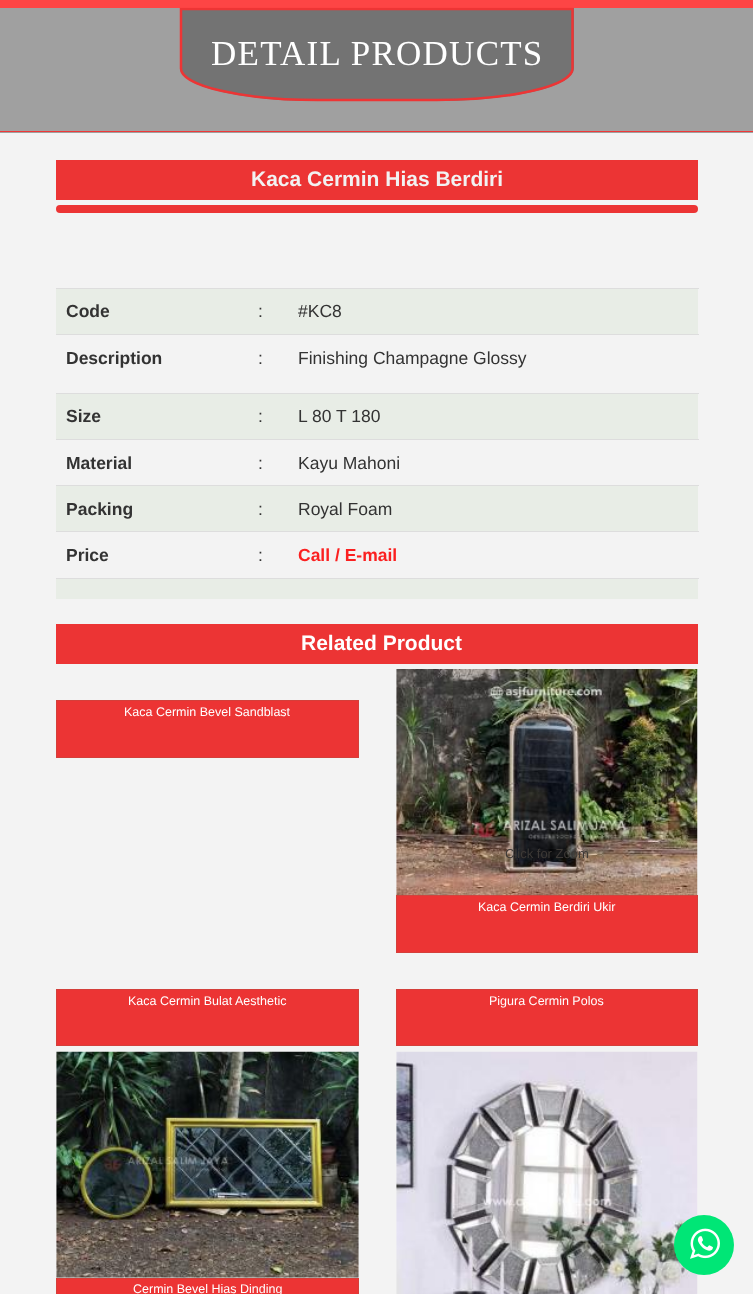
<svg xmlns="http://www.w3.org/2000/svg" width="753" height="1294">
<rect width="100%" height="100%" fill="#fff"/>
<rect y="8" width="753" height="125" fill="#a0a0a0"/>
<path d="M180 8h394v60c0 19-62 33-138 33h-118c-76 0-138-14-138-33z" fill="#737373"/>
<path d="M181 9h391.5v59.5c0 17.5-61 31.5-136.5 31.5h-118c-75.5 0-137-14-137-31.5z" fill="none" stroke="#ed3535" stroke-width="2.5"/>
<rect width="753" height="8" fill="#fd3737ed"/>
<rect y="131" width="753" height="1" fill="#f03737"/>
<text x="211" y="65" style="font-family:Liberation Serif;font-size:35px;letter-spacing:1.25px;fill:#fff">DETAIL PRODUCTS</text>
<rect y="133" width="753" height="1161" fill="#f3f3f3"/>
<rect x="56" y="160" width="642" height="40" fill="#ec3434"/>
<text x="251" y="186" style="font-family:Liberation Sans;font-size:21px;font-weight:bold;fill:#f2f2f2">Kaca Cermin Hias Berdiri</text>
<rect x="56" y="205" width="642" height="8" rx="4" fill="#ec3434"/>
<rect x="56" y="289" width="642" height="45" fill="#e8ede6"/>
<text x="66" y="317" style="font-family:Liberation Sans;font-size:17.5px;font-weight:bold;fill:#333">Code</text>
<text x="258" y="317" style="font-family:Liberation Sans;font-size:17.5px;fill:#333">:</text>
<rect x="56" y="288" width="643" height="1" fill="#ddd"/>
<text x="298" y="317" style="font-family:Liberation Sans;font-size:17.5px;fill:#333">#KC8</text>
<text x="66" y="364" style="font-family:Liberation Sans;font-size:17.5px;font-weight:bold;fill:#333">Description</text>
<text x="258" y="364" style="font-family:Liberation Sans;font-size:17.5px;fill:#333">:</text>
<rect x="56" y="334" width="643" height="1" fill="#ddd"/>
<text x="298" y="364" style="font-family:Liberation Sans;font-size:17.5px;fill:#333">Finishing Champagne Glossy</text>
<rect x="56" y="394" width="642" height="45" fill="#e8ede6"/>
<text x="66" y="422" style="font-family:Liberation Sans;font-size:17.5px;font-weight:bold;fill:#333">Size</text>
<text x="258" y="422" style="font-family:Liberation Sans;font-size:17.5px;fill:#333">:</text>
<rect x="56" y="393" width="643" height="1" fill="#ddd"/>
<text x="298" y="422" style="font-family:Liberation Sans;font-size:17.5px;fill:#333">L 80 T 180</text>
<text x="66" y="469" style="font-family:Liberation Sans;font-size:17.5px;font-weight:bold;fill:#333">Material</text>
<text x="258" y="469" style="font-family:Liberation Sans;font-size:17.5px;fill:#333">:</text>
<rect x="56" y="439" width="643" height="1" fill="#ddd"/>
<text x="298" y="469" style="font-family:Liberation Sans;font-size:17.5px;fill:#333">Kayu Mahoni</text>
<rect x="56" y="486" width="642" height="45" fill="#e8ede6"/>
<text x="66" y="515" style="font-family:Liberation Sans;font-size:17.5px;font-weight:bold;fill:#333">Packing</text>
<text x="258" y="515" style="font-family:Liberation Sans;font-size:17.5px;fill:#333">:</text>
<rect x="56" y="485" width="643" height="1" fill="#ddd"/>
<text x="298" y="515" style="font-family:Liberation Sans;font-size:17.5px;fill:#333">Royal Foam</text>
<text x="66" y="561" style="font-family:Liberation Sans;font-size:17.5px;font-weight:bold;fill:#333">Price</text>
<text x="258" y="561" style="font-family:Liberation Sans;font-size:17.5px;fill:#333">:</text>
<rect x="56" y="531" width="643" height="1" fill="#ddd"/>
<text x="298" y="561" style="font-family:Liberation Sans;font-size:17.5px;font-weight:bold;fill:#fb2020">Call / E-mail</text>
<rect x="56" y="579" width="642" height="20" fill="#e8ede6"/>
<rect x="56" y="578" width="643" height="1" fill="#ddd"/>
<rect x="56" y="624" width="642" height="40" fill="#ec3434"/>
<text x="301" y="650" style="font-family:Liberation Sans;font-size:21px;font-weight:bold;fill:#fff">Related Product</text>
<rect x="56.5" y="700.5" width="302" height="57" fill="#ec3434" stroke="#d43f3a"/>
<text x="124" y="716" style="font-family:Liberation Sans;font-size:12.5px;fill:#fff">Kaca Cermin Bevel Sandblast</text>
<rect x="396.5" y="895.5" width="301" height="57" fill="#ec3434" stroke="#d43f3a"/>
<image x="396" y="669" width="302" height="227" href="media/1.png"/>
<text x="505" y="858" style="font-family:Liberation Sans;font-size:13px;fill:#3d3936">Click for Zoom</text>
<text x="478" y="911" style="font-family:Liberation Sans;font-size:12.5px;fill:#fff">Kaca Cermin Berdiri Ukir</text>
<rect x="56.5" y="989.5" width="302" height="56" fill="#ec3434" stroke="#d43f3a"/>
<text x="128" y="1005" style="font-family:Liberation Sans;font-size:12.5px;fill:#fff">Kaca Cermin Bulat Aesthetic</text>
<rect x="396.5" y="989.5" width="301" height="56" fill="#ec3434" stroke="#d43f3a"/>
<text x="489" y="1005" style="font-family:Liberation Sans;font-size:12.5px;fill:#fff">Pigura Cermin Polos</text>
<image x="56" y="1051" width="303" height="227" href="media/2.png"/>
<rect x="56.5" y="1278.5" width="302" height="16" fill="#ec3434" stroke="#d43f3a"/>
<text x="133" y="1293" style="font-family:Liberation Sans;font-size:12.5px;fill:#fff">Cermin Bevel Hias Dinding</text>
<image x="396" y="1051" width="302" height="243" href="media/3.png"/>
<circle cx="704" cy="1245" r="30" fill="#00e676"/>
<image x="690" y="1228" width="30" height="31" href="media/4.png"/>
</svg>
